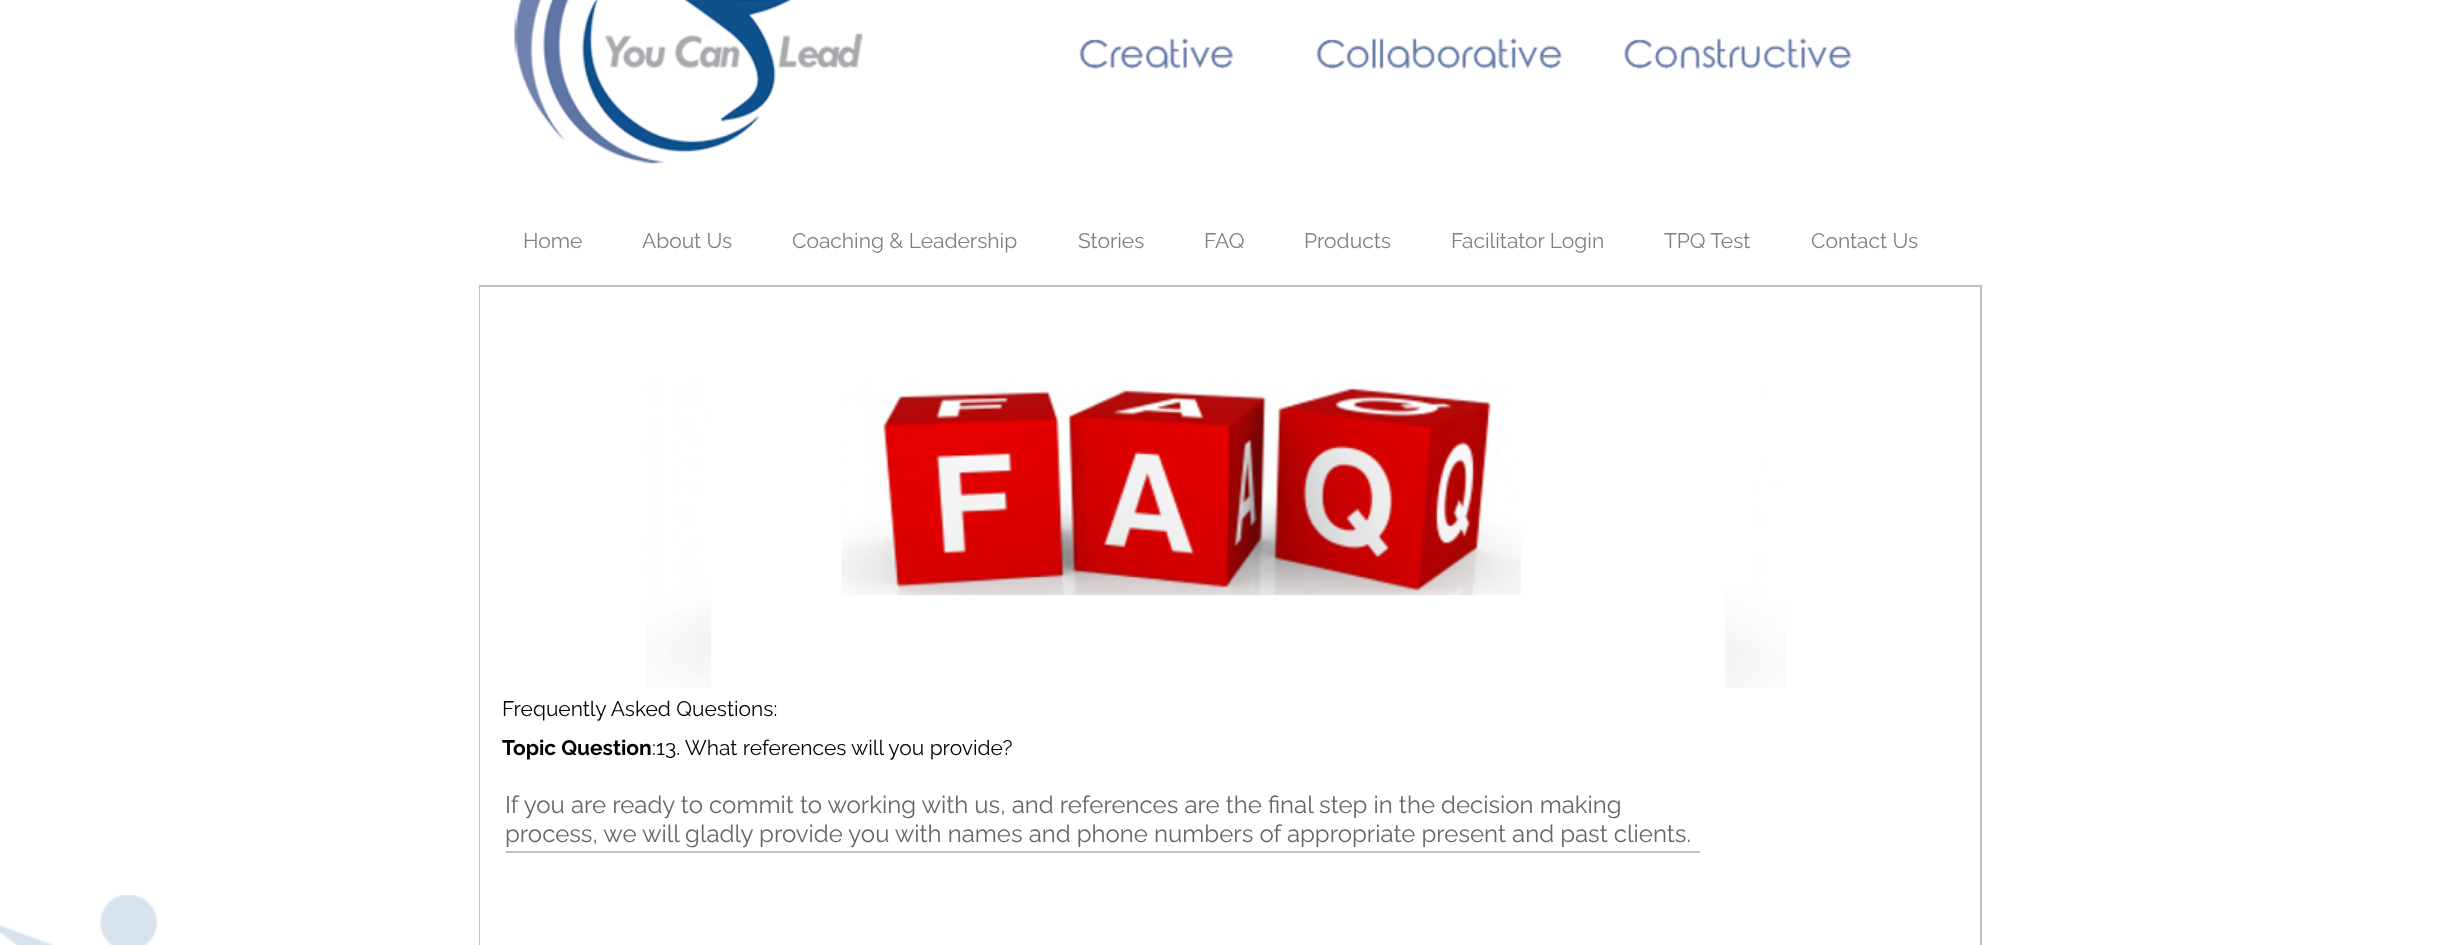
<svg xmlns="http://www.w3.org/2000/svg" width="2455" height="945">
<rect width="100%" height="100%" fill="#fff"/>
<image x="0" y="895" width="158" height="50" href="media/1.png"/>
<image x="514" y="0" width="1338" height="164" href="media/2.png"/>
<text x="523" y="248" style="font-family:Raleway;font-size:21px;fill:#808080">Home</text>
<text x="642" y="248" style="font-family:Raleway;font-size:21px;fill:#808080">About Us</text>
<text x="792" y="248" style="font-family:Raleway;font-size:21px;fill:#808080">Coaching &amp; Leadership</text>
<text x="1078" y="248" style="font-family:Raleway;font-size:21px;fill:#808080">Stories</text>
<text x="1204" y="248" style="font-family:Raleway;font-size:21px;fill:#808080">FAQ</text>
<text x="1304" y="248" style="font-family:Raleway;font-size:21px;fill:#808080">Products</text>
<text x="1451" y="248" style="font-family:Raleway;font-size:21px;fill:#808080">Facilitator Login</text>
<text x="1664" y="248" style="font-family:Raleway;font-size:21px;fill:#808080">TPQ Test</text>
<text x="1811" y="248" style="font-family:Raleway;font-size:21px;fill:#808080">Contact Us</text>
<rect x="480" y="286" width="1501" height="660" fill="none" stroke="#c0c0c0" stroke-width="2"/>
<rect x="480" y="287" width="1" height="658" fill="#fff"/>
<image x="646" y="378" width="1140" height="310" href="media/3.png"/>
<text x="502" y="716" style="font-family:Raleway;font-size:21px;fill:#000">Frequently Asked Questions:</text>
<text x="502" y="755" style="font-family:Raleway;font-size:21px;font-weight:bold;fill:#000">Topic Question</text>
<text x="652" y="755" style="font-family:Raleway;font-size:21px;fill:#000">:13. What references will you provide?</text>
<text x="505" y="813" style="font-family:Raleway;font-size:24px;fill:#666">If you are ready to commit to working with us, and references are the final step in the decision making</text>
<text x="505" y="842" style="font-family:Raleway;font-size:24px;fill:#666">process, we will gladly provide you with names and phone numbers of appropriate present and past clients.</text>
<rect x="506" y="851" width="1194" height="2" fill="#c0c0c0"/>
</svg>
